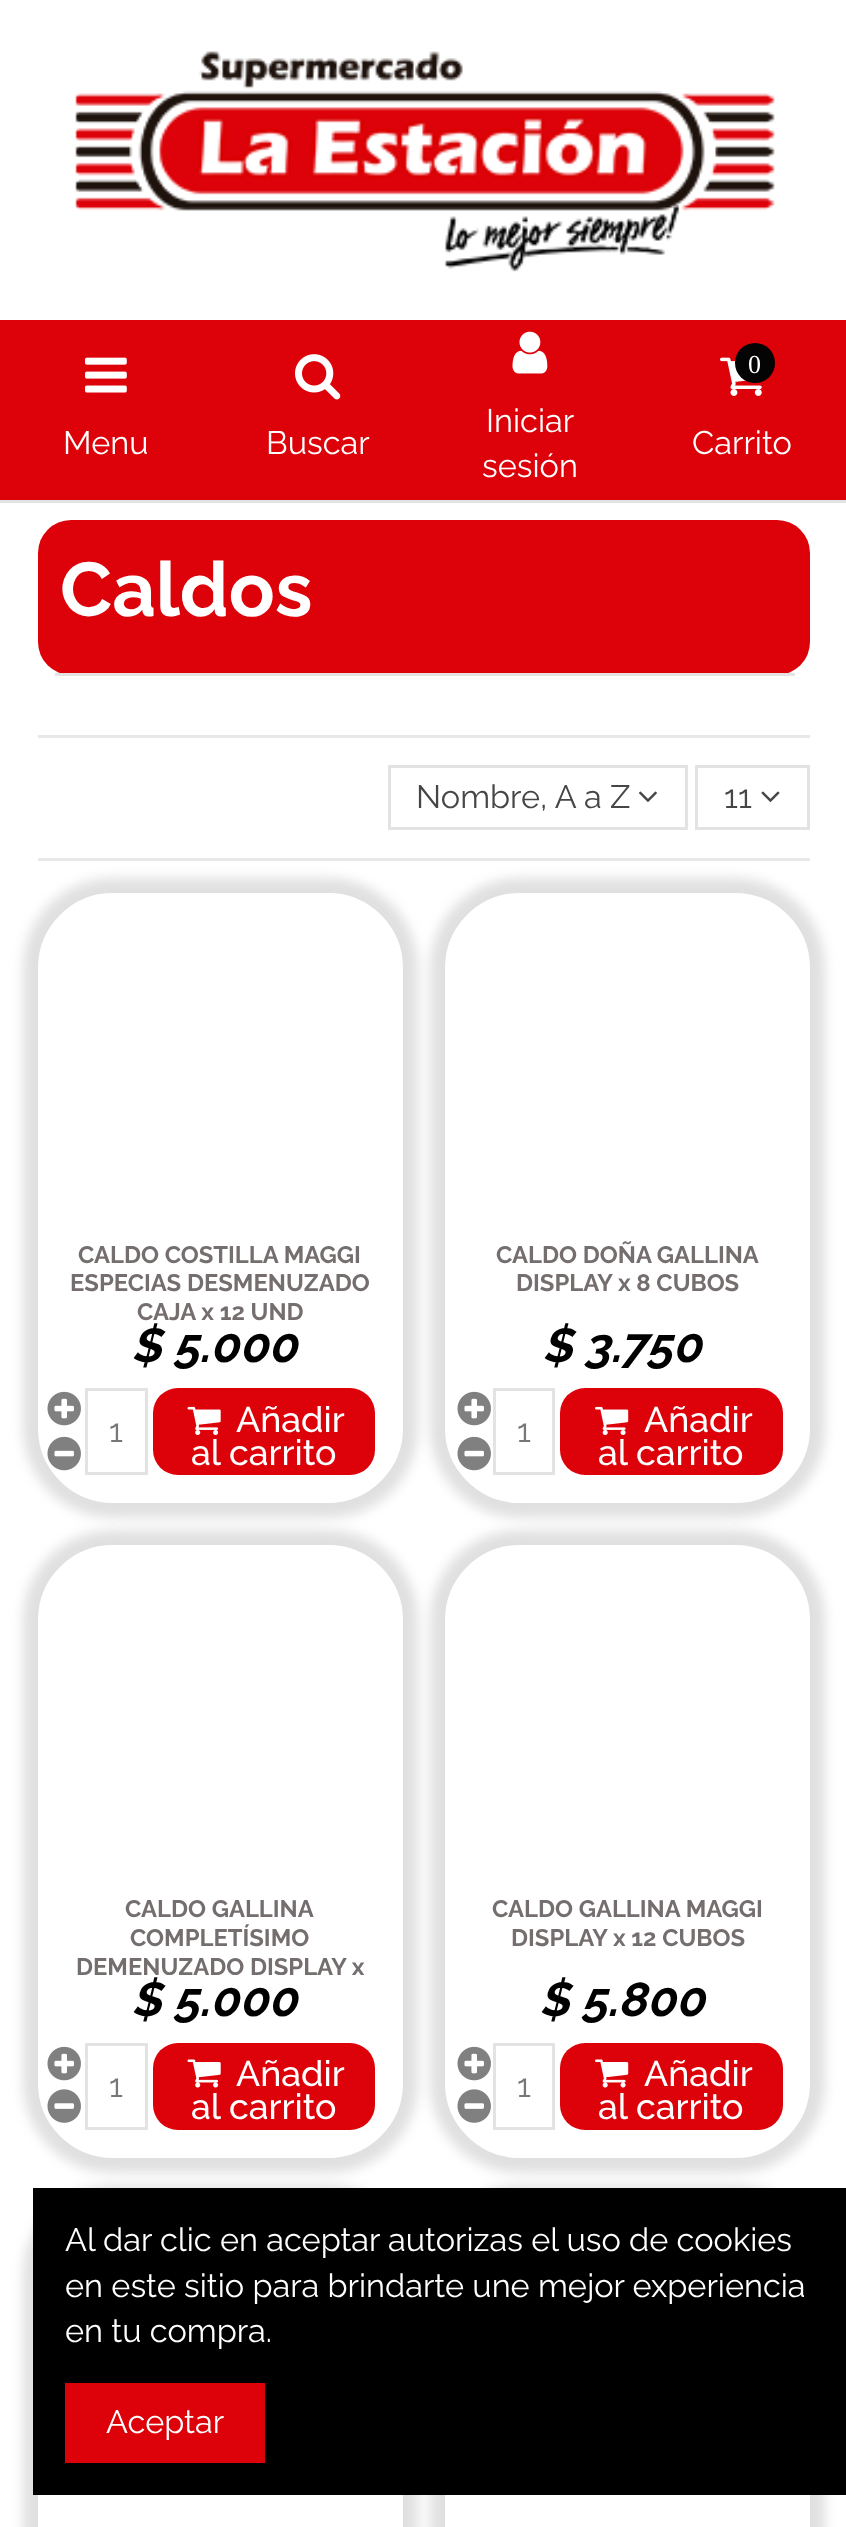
<svg xmlns="http://www.w3.org/2000/svg" width="846" height="2527">
<defs>
<clipPath id="clip1"><rect x="65" y="1895" width="310" height="80"/></clipPath>
</defs>
<rect width="100%" height="100%" fill="#fff"/>
<rect y="500" width="846" height="3" fill="#e3e3e3"/>
<image x="75" y="51" width="700" height="221" href="media/1.png"/>
<rect y="320" width="846" height="180" fill="#dd0209"/>
<image x="85" y="357" width="42" height="36" href="media/2.png"/>
<text x="63" y="454" style="font-family:Raleway;font-size:32.5px;fill:#fff">Menu</text>
<image x="295" y="354" width="46" height="46" href="media/3.png"/>
<text x="266" y="454" style="font-family:Raleway;font-size:32.5px;fill:#fff">Buscar</text>
<image x="512" y="331" width="36" height="43" href="media/4.png"/>
<text x="486" y="432" style="font-family:Raleway;font-size:32.5px;fill:#fff">Iniciar</text>
<text x="482" y="477" style="font-family:Raleway;font-size:32.5px;fill:#fff">sesión</text>
<image x="720" y="357" width="42" height="39" href="media/5.png"/>
<circle cx="755" cy="363" r="20" fill="#040404"/>
<text x="748" y="373" style="font-family:Liberation Serif;font-size:26px;fill:#fff">0</text>
<text x="692" y="454" style="font-family:Raleway;font-size:32.5px;fill:#fff">Carrito</text>
<rect x="38" y="520" width="772" height="155" rx="33" fill="#dd0209"/>
<rect x="55" y="673" width="740" height="3" fill="#e3e3e3"/>
<text x="60" y="616" style="font-family:Raleway;font-size:76px;font-weight:bold;fill:#fff">Caldos</text>
<rect x="38" y="735" width="772" height="3" fill="#e8e8e8"/>
<rect x="38" y="858" width="772" height="3" fill="#e8e8e8"/>
<rect x="389.5" y="766.5" width="297" height="62" fill="none" stroke="#e3e3e3" stroke-width="3"/>
<text x="416" y="808" style="font-family:Raleway;font-size:32.5px;fill:#474646">Nombre, A a Z</text>
<image x="639" y="791" width="18" height="11" href="media/6.png"/>
<rect x="696.5" y="766.5" width="112" height="62" fill="none" stroke="#e3e3e3" stroke-width="3"/>
<text x="724" y="808" style="font-family:Raleway;font-size:32.5px;fill:#474646">11</text>
<image x="761" y="791" width="19" height="11" href="media/7.png"/>
<rect x="23" y="878" width="395" height="640" rx="90" fill="#e0e0e0" filter="blur(6px)"/>
<rect x="40.5" y="895.5" width="360" height="605" rx="72.5" fill="#fff" stroke="#fff" stroke-width="5"/>
<text x="78" y="1263" style="font-family:Raleway;font-size:23.8px;font-weight:bold;fill:#756e6e">CALDO COSTILLA MAGGI</text>
<text x="70" y="1291" style="font-family:Raleway;font-size:23.8px;font-weight:bold;fill:#756e6e">ESPECIAS DESMENUZADO</text>
<text x="137" y="1320" style="font-family:Raleway;font-size:23.8px;font-weight:bold;fill:#756e6e">CAJA x 12 UND</text>
<text x="131" y="1362" style="font-family:Raleway;font-size:47.5px;font-weight:bold;font-style:italic;fill:#000">$ 5.000</text>
<image x="47" y="1391" width="34" height="35" href="media/8.png"/>
<image x="47" y="1436" width="34" height="35" href="media/9.png"/>
<rect x="86.5" y="1389.5" width="60" height="84" fill="none" stroke="#e3e3e3" stroke-width="3"/>
<text x="109" y="1442" style="font-family:Raleway;font-size:32.5px;fill:#777">1</text>
<rect x="153" y="1388" width="222" height="87" rx="25" fill="#dd0209"/>
<image x="187" y="1406" width="34" height="29" href="media/10.png"/>
<text x="236" y="1432" style="font-family:Raleway;font-size:35.75px;font-weight:500;fill:#fff">Añadir</text>
<text x="191" y="1465" style="font-family:Raleway;font-size:35.75px;font-weight:500;fill:#fff">al carrito</text>
<rect x="430" y="878" width="395" height="640" rx="90" fill="#e0e0e0" filter="blur(6px)"/>
<rect x="447.5" y="895.5" width="360" height="605" rx="72.5" fill="#fff" stroke="#fff" stroke-width="5"/>
<text x="496" y="1263" style="font-family:Raleway;font-size:23.8px;font-weight:bold;fill:#756e6e">CALDO DOÑA GALLINA</text>
<text x="516" y="1291" style="font-family:Raleway;font-size:23.8px;font-weight:bold;fill:#756e6e">DISPLAY x 8 CUBOS</text>
<text x="542" y="1362" style="font-family:Raleway;font-size:47.5px;font-weight:bold;font-style:italic;fill:#000">$ 3.750</text>
<image x="457" y="1391" width="34" height="35" href="media/8.png"/>
<image x="457" y="1436" width="34" height="35" href="media/11.png"/>
<rect x="494.5" y="1389.5" width="59" height="84" fill="none" stroke="#e3e3e3" stroke-width="3"/>
<text x="517" y="1442" style="font-family:Raleway;font-size:32.5px;fill:#777">1</text>
<rect x="560" y="1388" width="223" height="87" rx="25" fill="#dd0209"/>
<image x="595" y="1406" width="34" height="29" href="media/12.png"/>
<text x="644" y="1432" style="font-family:Raleway;font-size:35.75px;font-weight:500;fill:#fff">Añadir</text>
<text x="598" y="1465" style="font-family:Raleway;font-size:35.75px;font-weight:500;fill:#fff">al carrito</text>
<rect x="23" y="1530" width="395" height="643" rx="90" fill="#e0e0e0" filter="blur(6px)"/>
<rect x="40.5" y="1547.5" width="360" height="608" rx="72.5" fill="#fff" stroke="#fff" stroke-width="5"/>
<text x="125" y="1917" style="font-family:Raleway;font-size:23.8px;font-weight:bold;fill:#756e6e">CALDO GALLINA</text>
<text x="130" y="1946" style="font-family:Raleway;font-size:23.8px;font-weight:bold;fill:#756e6e">COMPLETÍSIMO</text>
<g clip-path="url(#clip1)">
<text x="76" y="1975" style="font-family:Raleway;font-size:23.8px;font-weight:bold;fill:#756e6e">DEMENUZADO DISPLAY x</text>
</g>
<text x="131" y="2016" style="font-family:Raleway;font-size:47.5px;font-weight:bold;font-style:italic;fill:#000">$ 5.000</text>
<image x="47" y="2046" width="34" height="35" href="media/8.png"/>
<image x="47" y="2089" width="34" height="34" href="media/13.png"/>
<rect x="86.5" y="2044.5" width="60" height="84" fill="none" stroke="#e3e3e3" stroke-width="3"/>
<text x="109" y="2097" style="font-family:Raleway;font-size:32.5px;fill:#777">1</text>
<rect x="153" y="2043" width="222" height="87" rx="25" fill="#dd0209"/>
<image x="187" y="2059" width="34" height="29" href="media/14.png"/>
<text x="236" y="2086" style="font-family:Raleway;font-size:35.75px;font-weight:500;fill:#fff">Añadir</text>
<text x="191" y="2119" style="font-family:Raleway;font-size:35.75px;font-weight:500;fill:#fff">al carrito</text>
<rect x="430" y="1530" width="395" height="643" rx="90" fill="#e0e0e0" filter="blur(6px)"/>
<rect x="447.5" y="1547.5" width="360" height="608" rx="72.5" fill="#fff" stroke="#fff" stroke-width="5"/>
<text x="492" y="1917" style="font-family:Raleway;font-size:23.8px;font-weight:bold;fill:#756e6e">CALDO GALLINA MAGGI</text>
<text x="511" y="1946" style="font-family:Raleway;font-size:23.8px;font-weight:bold;fill:#756e6e">DISPLAY x 12 CUBOS</text>
<text x="539" y="2016" style="font-family:Raleway;font-size:47.5px;font-weight:bold;font-style:italic;fill:#000">$ 5.800</text>
<image x="457" y="2046" width="34" height="35" href="media/8.png"/>
<image x="457" y="2089" width="34" height="34" href="media/15.png"/>
<rect x="494.5" y="2044.5" width="59" height="84" fill="none" stroke="#e3e3e3" stroke-width="3"/>
<text x="517" y="2097" style="font-family:Raleway;font-size:32.5px;fill:#777">1</text>
<rect x="560" y="2043" width="223" height="87" rx="25" fill="#dd0209"/>
<image x="595" y="2059" width="34" height="29" href="media/16.png"/>
<text x="644" y="2086" style="font-family:Raleway;font-size:35.75px;font-weight:500;fill:#fff">Añadir</text>
<text x="598" y="2119" style="font-family:Raleway;font-size:35.75px;font-weight:500;fill:#fff">al carrito</text>
<rect x="23" y="2185" width="395" height="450" rx="90" fill="#e0e0e0" filter="blur(6px)"/>
<rect x="43" y="2495" width="355" height="32" fill="#fff"/>
<rect x="40.5" y="2202.5" width="360" height="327" fill="none" stroke="#fff" stroke-width="5"/>
<rect x="430" y="2185" width="395" height="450" rx="90" fill="#e0e0e0" filter="blur(6px)"/>
<rect x="450" y="2495" width="355" height="32" fill="#fff"/>
<rect x="447.5" y="2202.5" width="360" height="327" fill="none" stroke="#fff" stroke-width="5"/>
<rect x="33" y="2188" width="813" height="307" fill="#000"/>
<text x="65" y="2251" style="font-family:Raleway;font-size:32.5px;fill:#fff">Al dar clic en aceptar autorizas el uso de cookies</text>
<text x="65" y="2297" style="font-family:Raleway;font-size:32.5px;fill:#fff">en este sitio para brindarte une mejor experiencia</text>
<text x="65" y="2342" style="font-family:Raleway;font-size:32.5px;fill:#fff">en tu compra.</text>
<rect x="65" y="2383" width="200" height="80" fill="#dd0209"/>
<text x="106" y="2433" style="font-family:Raleway;font-size:32.5px;fill:#fff">Aceptar</text>
</svg>
